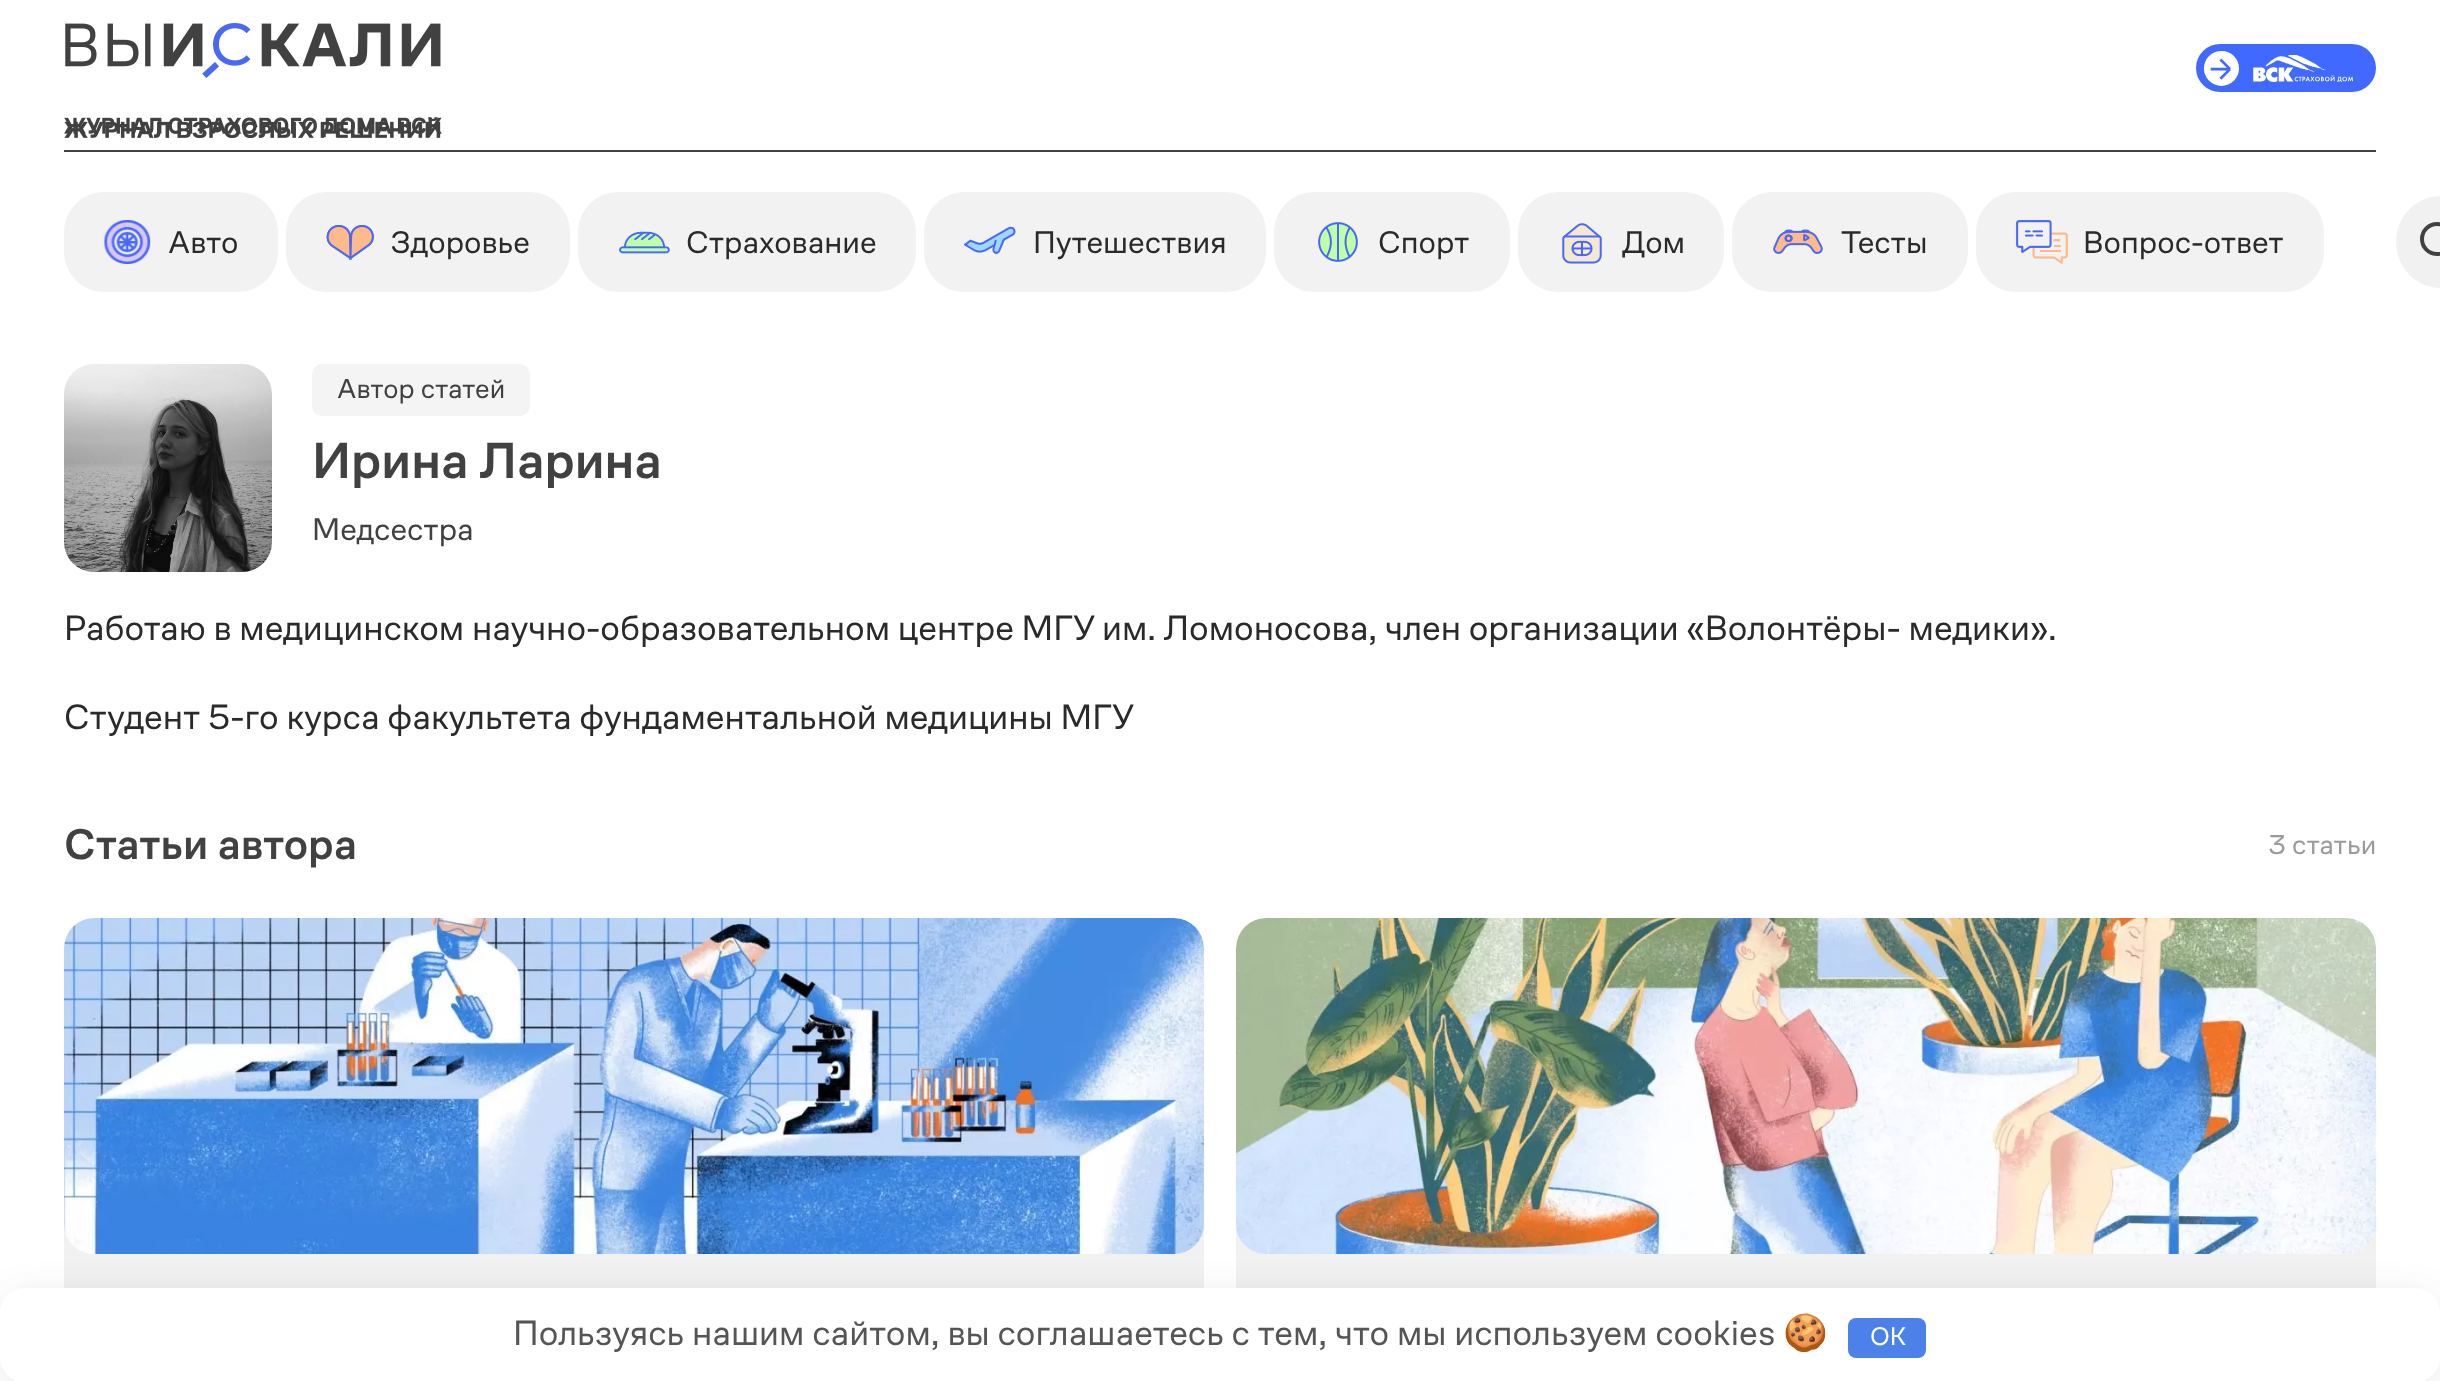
<svg xmlns="http://www.w3.org/2000/svg" width="2440" height="1381">
<rect width="100%" height="100%" fill="#fff"/>
<rect x="64" y="150" width="2312" height="2" fill="#414141"/>
<image x="65" y="23" width="376" height="55" href="media/1.png"/>
<image x="2196" y="44" width="180" height="48" href="media/2.png"/>
<image x="64" y="117" width="377" height="21" href="media/3.png"/>
<image x="64" y="117" width="378" height="20" href="media/4.png"/>
<rect x="64" y="192" width="214" height="100" rx="40" fill="#f2f2f2"/>
<image x="104" y="220" width="47" height="44" href="media/5.png"/>
<text x="168" y="253" style="font-family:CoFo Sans;font-size:32px;fill:#2a2a2a">Авто</text>
<rect x="286" y="192" width="284" height="100" rx="40" fill="#f2f2f2"/>
<image x="326" y="225" width="48" height="35" href="media/6.png"/>
<text x="390" y="253" style="font-family:CoFo Sans;font-size:32px;fill:#2a2a2a">Здоровье</text>
<rect x="578" y="192" width="338" height="100" rx="40" fill="#f2f2f2"/>
<image x="619" y="231" width="51" height="23" href="media/7.png"/>
<text x="686" y="253" style="font-family:CoFo Sans;font-size:32px;fill:#2a2a2a">Страхование</text>
<rect x="924" y="192" width="342" height="100" rx="40" fill="#f2f2f2"/>
<image x="964" y="226" width="52" height="28" href="media/8.png"/>
<text x="1033" y="253" style="font-family:CoFo Sans;font-size:32px;fill:#2a2a2a">Путешествия</text>
<rect x="1274" y="192" width="236" height="100" rx="40" fill="#f2f2f2"/>
<image x="1318" y="222" width="40" height="40" href="media/9.png"/>
<text x="1378" y="253" style="font-family:CoFo Sans;font-size:32px;fill:#2a2a2a">Спорт</text>
<rect x="1518" y="192" width="206" height="100" rx="40" fill="#f2f2f2"/>
<image x="1562" y="223" width="40" height="41" href="media/10.png"/>
<text x="1622" y="253" style="font-family:CoFo Sans;font-size:32px;fill:#2a2a2a">Дом</text>
<rect x="1732" y="192" width="236" height="100" rx="40" fill="#f2f2f2"/>
<image x="1773" y="229" width="50" height="25" href="media/11.png"/>
<text x="1841" y="253" style="font-family:CoFo Sans;font-size:32px;fill:#2a2a2a">Тесты</text>
<rect x="1976" y="192" width="348" height="100" rx="40" fill="#f2f2f2"/>
<image x="2016" y="220" width="52" height="44" href="media/12.png"/>
<text x="2083" y="253" style="font-family:CoFo Sans;font-size:32px;fill:#2a2a2a">Вопрос-ответ</text>
<rect x="2396" y="196" width="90" height="92" rx="46" fill="#f1f1f1"/>
<circle cx="2437" cy="239" r="15" fill="none" stroke="#414141" stroke-width="4"/>
<image x="64" y="364" width="208" height="208" href="media/13.png"/>
<rect x="312" y="364" width="218" height="52" rx="10" fill="#f4f4f4"/>
<text x="337" y="398" style="font-family:CoFo Sans;font-size:28px;fill:#414141">Автор статей</text>
<text x="312" y="478" style="font-family:CoFo Sans;font-size:52px;font-weight:500;fill:#414141">Ирина Ларина</text>
<text x="312" y="540" style="font-family:CoFo Sans;font-size:32px;fill:#414141">Медсестра</text>
<text x="64" y="640" style="font-family:CoFo Sans;font-size:36px;fill:#2a2a2a">Работаю в медицинском научно-образовательном центре МГУ им. Ломоносова, член организации «Волонтёры- медики».</text>
<text x="64" y="729" style="font-family:CoFo Sans;font-size:36px;fill:#2a2a2a">Студент 5-го курса факультета фундаментальной медицины МГУ</text>
<text x="64" y="859" style="font-family:CoFo Sans;font-size:44px;font-weight:500;fill:#414141">Статьи автора</text>
<text x="2268" y="854" style="font-family:CoFo Sans;font-size:28px;fill:#9a9a9a">3 статьи</text>
<rect x="64" y="918" width="1140" height="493" rx="30" fill="#f1f1f1"/>
<image x="64" y="918" width="1140" height="336" href="media/14.png"/>
<rect x="1236" y="918" width="1140" height="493" rx="30" fill="#f1f1f1"/>
<image x="1236" y="918" width="1140" height="336" href="media/15.png"/>
<rect x="10" y="1304" width="2420" height="74" rx="14" fill="#292c3833" filter="blur(20px)"/>
<rect y="1288" width="2440" height="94" rx="24" fill="#fff"/>
<text x="513" y="1345" style="font-family:CoFo Sans;font-size:36px;fill:#555">Пользуясь нашим сайтом, вы соглашаетесь с тем, что мы используем cookies</text>
<text x="1783" y="1345" style="font-family:Noto Color Emoji;font-size:36px;fill:#555">🍪</text>
<rect x="1848" y="1318" width="78" height="40" rx="8" fill="#4b81e8"/>
<text x="1870" y="1345" style="font-family:CoFo Sans;font-size:26px;fill:#fff">OK</text>
</svg>
